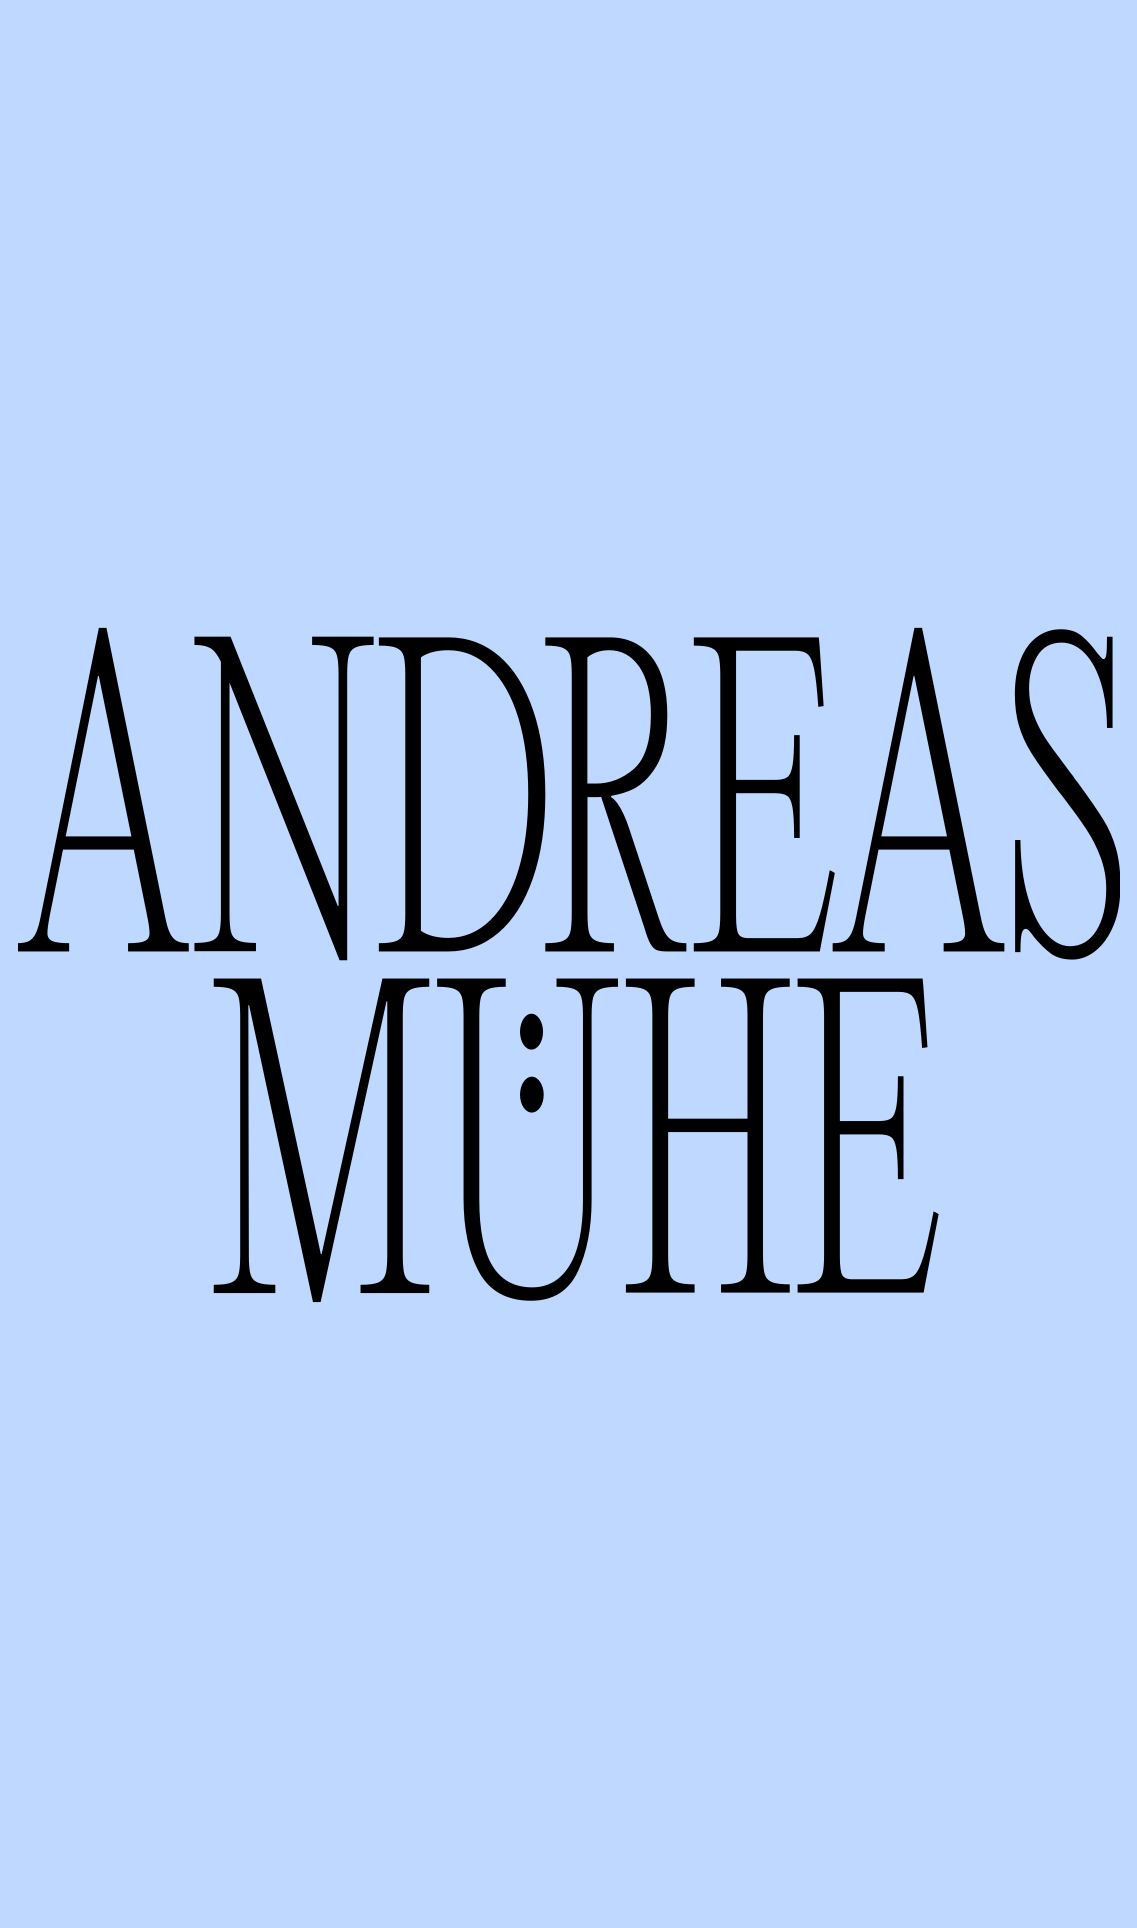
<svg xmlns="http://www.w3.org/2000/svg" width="1137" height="1928">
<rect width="100%" height="100%" fill="#bfd8ff"/>
<image x="18" y="627" width="1102" height="676" href="media/1.png"/>
</svg>
